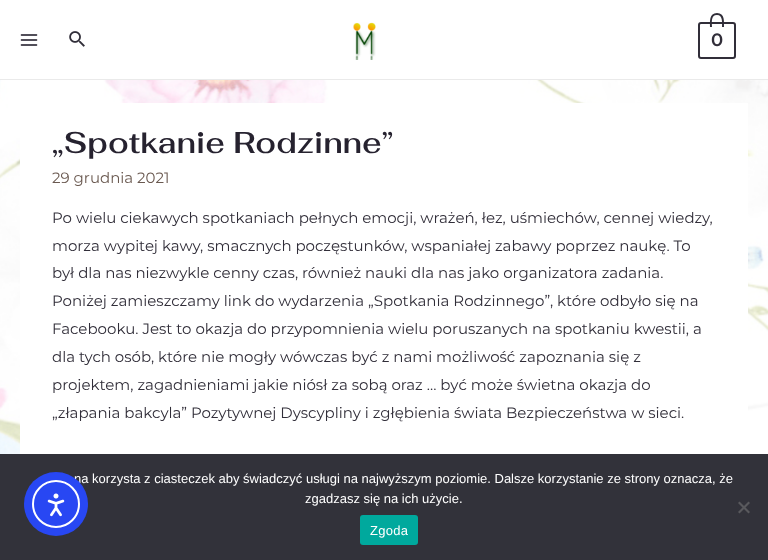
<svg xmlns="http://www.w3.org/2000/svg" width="768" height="560">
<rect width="100%" height="100%" fill="#fff"/>
<image x="0" y="80" width="768" height="374" href="media/1.png"/>
<rect y="79" width="768" height="1" fill="#eaeaea"/>
<image x="20" y="34" width="18" height="12" href="media/2.png"/>
<image x="69" y="31" width="16" height="16" href="media/3.png"/>
<image x="353" y="22" width="23" height="38" href="media/4.png"/>
<rect x="699" y="23" width="36" height="35" rx="2" fill="none" stroke="#312e39" stroke-width="2"/>
<path d="M717 13c8 0 7 8.5 7 14h-14c0-5.5-1-14 7-14zm0 2c6 0 5 8 5 12h-10c0-4-1.5-12 5-12z" fill="#312e39" fill-rule="evenodd"/>
<text x="711" y="46" style="font-family:Montserrat;font-size:18px;font-weight:600;fill:#312e39">0</text>
<rect x="20" y="103" width="728" height="351" fill="#fff"/>
<text x="52" y="153" style="font-family:Fahkwang;font-size:30px;font-weight:600;fill:#26222f">„Spotkanie Rodzinne”</text>
<text x="52" y="183" style="font-family:Montserrat;font-size:15px;fill:#6a5950">29 grudnia 2021</text>
<text x="52" y="223" style="font-family:Montserrat;font-size:15px;fill:#312e39">Po wielu ciekawych spotkaniach pełnych emocji, wrażeń, łez, uśmiechów, cennej wiedzy,</text>
<text x="52" y="251" style="font-family:Montserrat;font-size:15px;fill:#312e39">morza wypitej kawy, smacznych poczęstunków, wspaniałej zabawy poprzez naukę. To</text>
<text x="52" y="278" style="font-family:Montserrat;font-size:15px;fill:#312e39">był dla nas niezwykle cenny czas, również nauki dla nas jako organizatora zadania.</text>
<text x="52" y="306" style="font-family:Montserrat;font-size:15px;fill:#312e39">Poniżej zamieszczamy link do wydarzenia „Spotkania Rodzinnego”, które odbyło się na</text>
<text x="52" y="334" style="font-family:Montserrat;font-size:15px;fill:#312e39">Facebooku. Jest to okazja do przypomnienia wielu poruszanych na spotkaniu kwestii, a</text>
<text x="52" y="362" style="font-family:Montserrat;font-size:15px;fill:#312e39">dla tych osób, które nie mogły wówczas być z nami możliwość zapoznania się z</text>
<text x="52" y="390" style="font-family:Montserrat;font-size:15px;fill:#312e39">projektem, zagadnieniami jakie niósł za sobą oraz … być może świetna okazja do</text>
<text x="52" y="418" style="font-family:Montserrat;font-size:15px;fill:#312e39">„złapania bakcyla” Pozytywnej Dyscypliny i zgłębienia świata Bezpieczeństwa w sieci.</text>
<rect y="454" width="768" height="106" fill="#32323a"/>
<text x="74" y="483" style="font-family:Liberation Sans;font-size:13px;fill:#fff">na korzysta z ciasteczek aby świadczyć usługi na najwyższym poziomie. Dalsze korzystanie ze strony oznacza, że</text>
<circle cx="56" cy="504" r="32" fill="#2847f3"/>
<circle cx="56" cy="504" r="23" fill="none" stroke="#fff" stroke-width="2"/>
<image x="47" y="493" width="18" height="24" href="media/5.png"/>
<text x="305" y="503" style="font-family:Liberation Sans;font-size:13px;fill:#fff">zgadzasz się na ich użycie.</text>
<path d="M748.5 501.5l1.5 1.5l-10.5 10.5l-1.5-1.5z" fill="#59595d"/>
<path d="M738 503l1.5-1.5l10.5 10.5l-1.5 1.5z" fill="#59595d"/>
<rect x="360" y="515" width="58" height="30" rx="3" fill="#00a99d"/>
<text x="370" y="535" style="font-family:Liberation Sans;font-size:13px;letter-spacing:0.25px;fill:#fff">Zgoda</text>
</svg>
